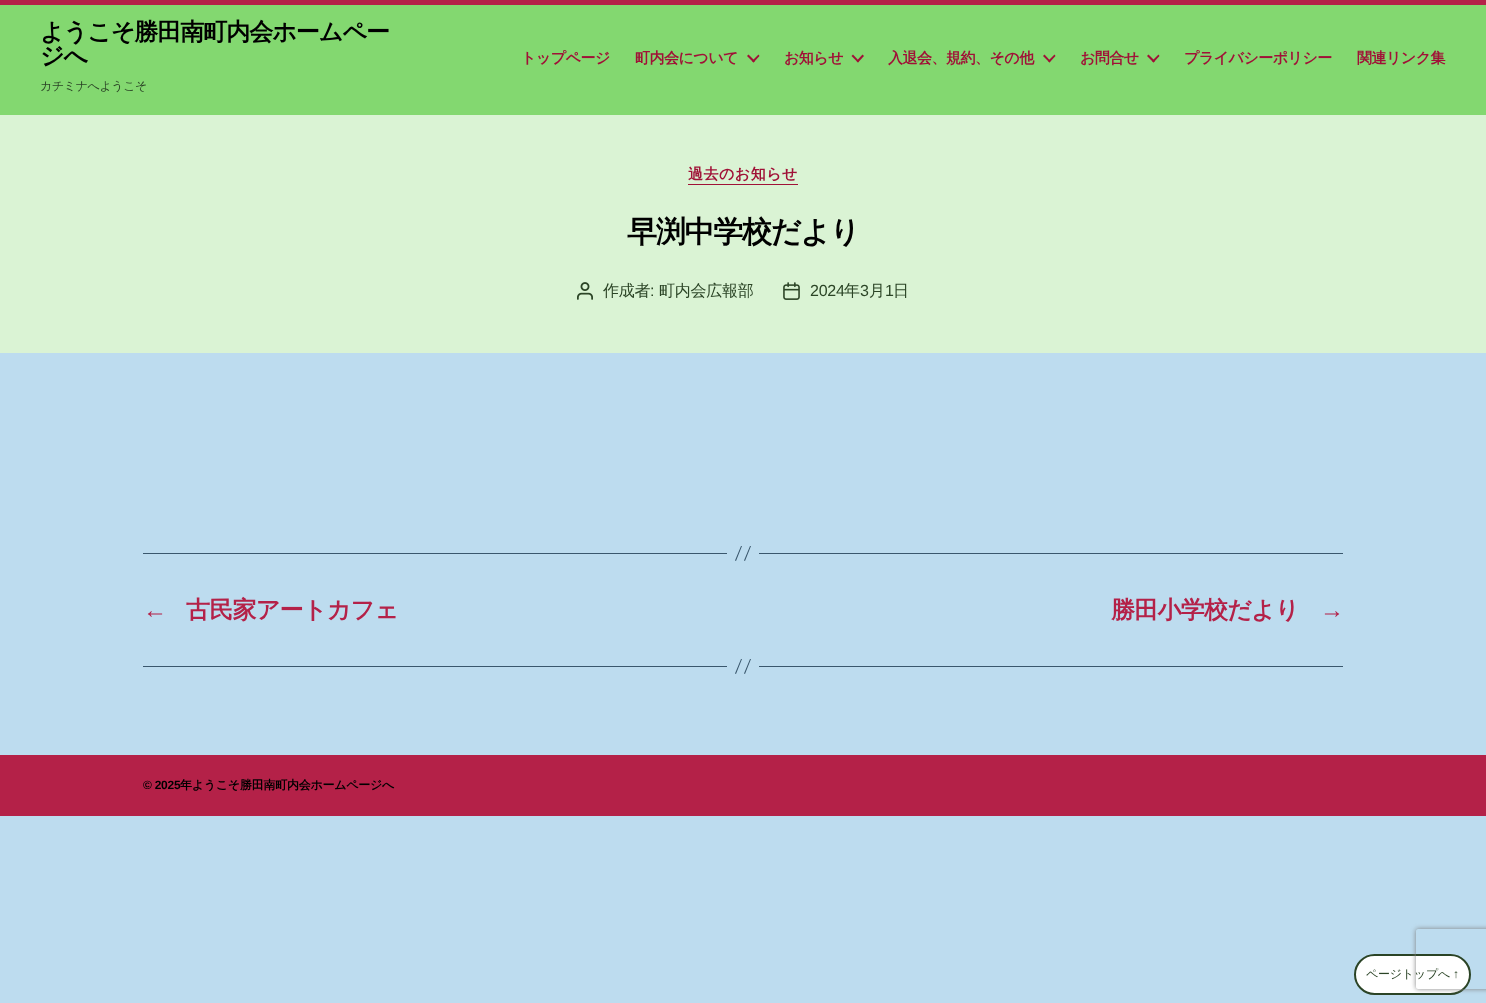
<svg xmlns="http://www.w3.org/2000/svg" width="1486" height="1003">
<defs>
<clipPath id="clip1"><path d="M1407 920h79v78h-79zm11 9h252c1 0 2 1 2 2v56c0 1-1 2-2 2h-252c-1 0-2-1-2-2v-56c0-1 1-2 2-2z" clip-rule="evenodd"/></clipPath>
</defs>
<rect width="100%" height="100%" fill="#bddcef"/>
<rect y="5" width="1486" height="110" fill="#83d870"/>
<rect width="1486" height="5" fill="#b42148"/>
<text x="40" y="40" style="font-family:WenQuanYi Zen Hei;font-size:24px;font-weight:bold;letter-spacing:-1px;fill:#000">ようこそ勝田南町内会ホームペー</text>
<text x="40" y="64" style="font-family:WenQuanYi Zen Hei;font-size:24px;font-weight:bold;letter-spacing:-1px;fill:#000">ジへ</text>
<text x="40" y="90" style="font-family:WenQuanYi Zen Hei;font-size:12px;font-weight:500;letter-spacing:-0.4px;fill:#2b4426">カチミナへようこそ</text>
<text x="521" y="63" style="font-family:WenQuanYi Zen Hei;font-size:15px;font-weight:bold;letter-spacing:-0.5px;fill:#a01137">トップページ</text>
<text x="635" y="63" style="font-family:WenQuanYi Zen Hei;font-size:15px;font-weight:bold;letter-spacing:-0.5px;fill:#a01137">町内会について</text>
<path d="M747 56l1.5-1.5l6.5 6.5l-1.5 1.5z" fill="#a01137"/>
<path d="M752 61l6.5-6.5l1 1.5l-6 6.5z" fill="#a01137"/>
<text x="784" y="63" style="font-family:WenQuanYi Zen Hei;font-size:15px;font-weight:bold;letter-spacing:-0.5px;fill:#a01137">お知らせ</text>
<path d="M851.5 56l1.5-1.5l6 6.5l-1 1.5z" fill="#a01137"/>
<path d="M856.5 61l6-6.5l1.5 1.5l-6 6.5z" fill="#a01137"/>
<text x="888" y="63" style="font-family:WenQuanYi Zen Hei;font-size:15px;font-weight:bold;letter-spacing:-0.5px;fill:#a01137">入退会、規約、その他</text>
<path d="M1043 56l1.5-1.5l6 6.5l-1 1.5z" fill="#a01137"/>
<path d="M1048 61l6.5-6.5l1 1.5l-6 6.5z" fill="#a01137"/>
<text x="1080" y="63" style="font-family:WenQuanYi Zen Hei;font-size:15px;font-weight:bold;letter-spacing:-0.5px;fill:#a01137">お問合せ</text>
<path d="M1147 56l1.5-1.5l6.5 6.5l-1.5 1.5z" fill="#a01137"/>
<path d="M1152 61l6.5-6.5l1 1.5l-6 6.5z" fill="#a01137"/>
<text x="1184" y="63" style="font-family:WenQuanYi Zen Hei;font-size:15px;font-weight:bold;letter-spacing:-0.5px;fill:#a01137">プライバシーポリシー</text>
<text x="1357" y="63" style="font-family:WenQuanYi Zen Hei;font-size:15px;font-weight:bold;letter-spacing:-0.5px;fill:#a01137">関連リンク集</text>
<rect y="115" width="1486" height="238" fill="#daf3d4"/>
<rect x="688" y="184" width="110" height="1" fill="#a01137"/>
<text x="688" y="179" style="font-family:WenQuanYi Zen Hei;font-size:15px;font-weight:bold;letter-spacing:0.5px;fill:#a01137">過去のお知らせ</text>
<text x="627" y="242" style="font-family:WenQuanYi Zen Hei;font-size:30px;font-weight:bold;letter-spacing:-1.25px;fill:#000">早渕中学校だより</text>
<image x="577" y="282" width="16" height="18" href="media/1.png"/>
<text x="603" y="296" style="font-family:WenQuanYi Zen Hei;font-size:16px;font-weight:500;letter-spacing:-0.25px;fill:#2b4426">作成者</text>
<text x="650" y="296" style="font-family:Liberation Sans;font-size:16px;letter-spacing:-0.25px;fill:#2b4426">:</text>
<text x="659" y="296" style="font-family:WenQuanYi Zen Hei;font-size:16px;font-weight:500;letter-spacing:-0.25px;fill:#2b4426">町内会広報部</text>
<image x="783" y="282" width="17" height="18" href="media/2.png"/>
<text x="810" y="296" style="font-family:Liberation Sans;font-size:16px;letter-spacing:-0.25px;fill:#2b4426">2024</text>
<text x="844" y="296" style="font-family:WenQuanYi Zen Hei;font-size:16px;font-weight:500;letter-spacing:-0.25px;fill:#2b4426">年</text>
<text x="860" y="296" style="font-family:Liberation Sans;font-size:16px;letter-spacing:-0.25px;fill:#2b4426">3</text>
<text x="869" y="296" style="font-family:WenQuanYi Zen Hei;font-size:16px;font-weight:500;letter-spacing:-0.25px;fill:#2b4426">月</text>
<text x="885" y="296" style="font-family:Liberation Sans;font-size:16px;letter-spacing:-0.25px;fill:#2b4426">1</text>
<text x="893" y="296" style="font-family:WenQuanYi Zen Hei;font-size:16px;font-weight:500;letter-spacing:-0.25px;fill:#2b4426">日</text>
<rect x="759" y="553" width="584" height="1" fill="#3a576d"/>
<rect x="143" y="553" width="584" height="1" fill="#3a576d"/>
<path d="M741 546h1l-6 15l-1-.5zm9 0h1l-6 15l-1-.5z" fill="#3a576d"/>
<text x="143" y="618" style="font-family:Liberation Sans;font-size:24px;font-weight:bold;letter-spacing:-0.75px;fill:#b42148">←</text>
<text x="186" y="618" style="font-family:WenQuanYi Zen Hei;font-size:24px;font-weight:bold;letter-spacing:-0.75px;fill:#b42148">古民家アートカフェ</text>
<text x="1111" y="618" style="font-family:WenQuanYi Zen Hei;font-size:24px;font-weight:bold;letter-spacing:-0.75px;fill:#b42148">勝田小学校だより</text>
<text x="1320" y="618" style="font-family:Liberation Sans;font-size:24px;font-weight:bold;letter-spacing:-0.75px;fill:#b42148">→</text>
<rect x="759" y="666" width="584" height="1" fill="#3a576d"/>
<rect x="143" y="666" width="584" height="1" fill="#3a576d"/>
<path d="M741 659h1l-6 15l-1-.5zm9 0h1l-6 15l-1-.5z" fill="#3a576d"/>
<rect y="755" width="1486" height="61" fill="#b42148"/>
<text x="143" y="789" style="font-family:Liberation Sans;font-size:12px;font-weight:bold;letter-spacing:-0.25px;fill:#000">© 2025</text>
<text x="180" y="789" style="font-family:WenQuanYi Zen Hei;font-size:12px;font-weight:bold;letter-spacing:-0.25px;fill:#000">年ようこそ勝田南町内会ホームページへ</text>
<rect x="1355" y="955" width="115" height="39" rx="19.5" fill="#fff" stroke="#2b4426" stroke-width="2"/>
<text x="1366" y="978" style="font-family:WenQuanYi Zen Hei;font-size:12px;font-weight:500;letter-spacing:-0.25px;fill:#2b4426">ページトップへ</text>
<text x="1453" y="978" style="font-family:Liberation Sans;font-size:12px;letter-spacing:-0.25px;fill:#2b4426">↑</text>
<g clip-path="url(#clip1)">
<rect x="1416" y="929" width="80" height="60" rx="2" fill="#808080" filter="blur(2.5px)"/>
</g>
</svg>
